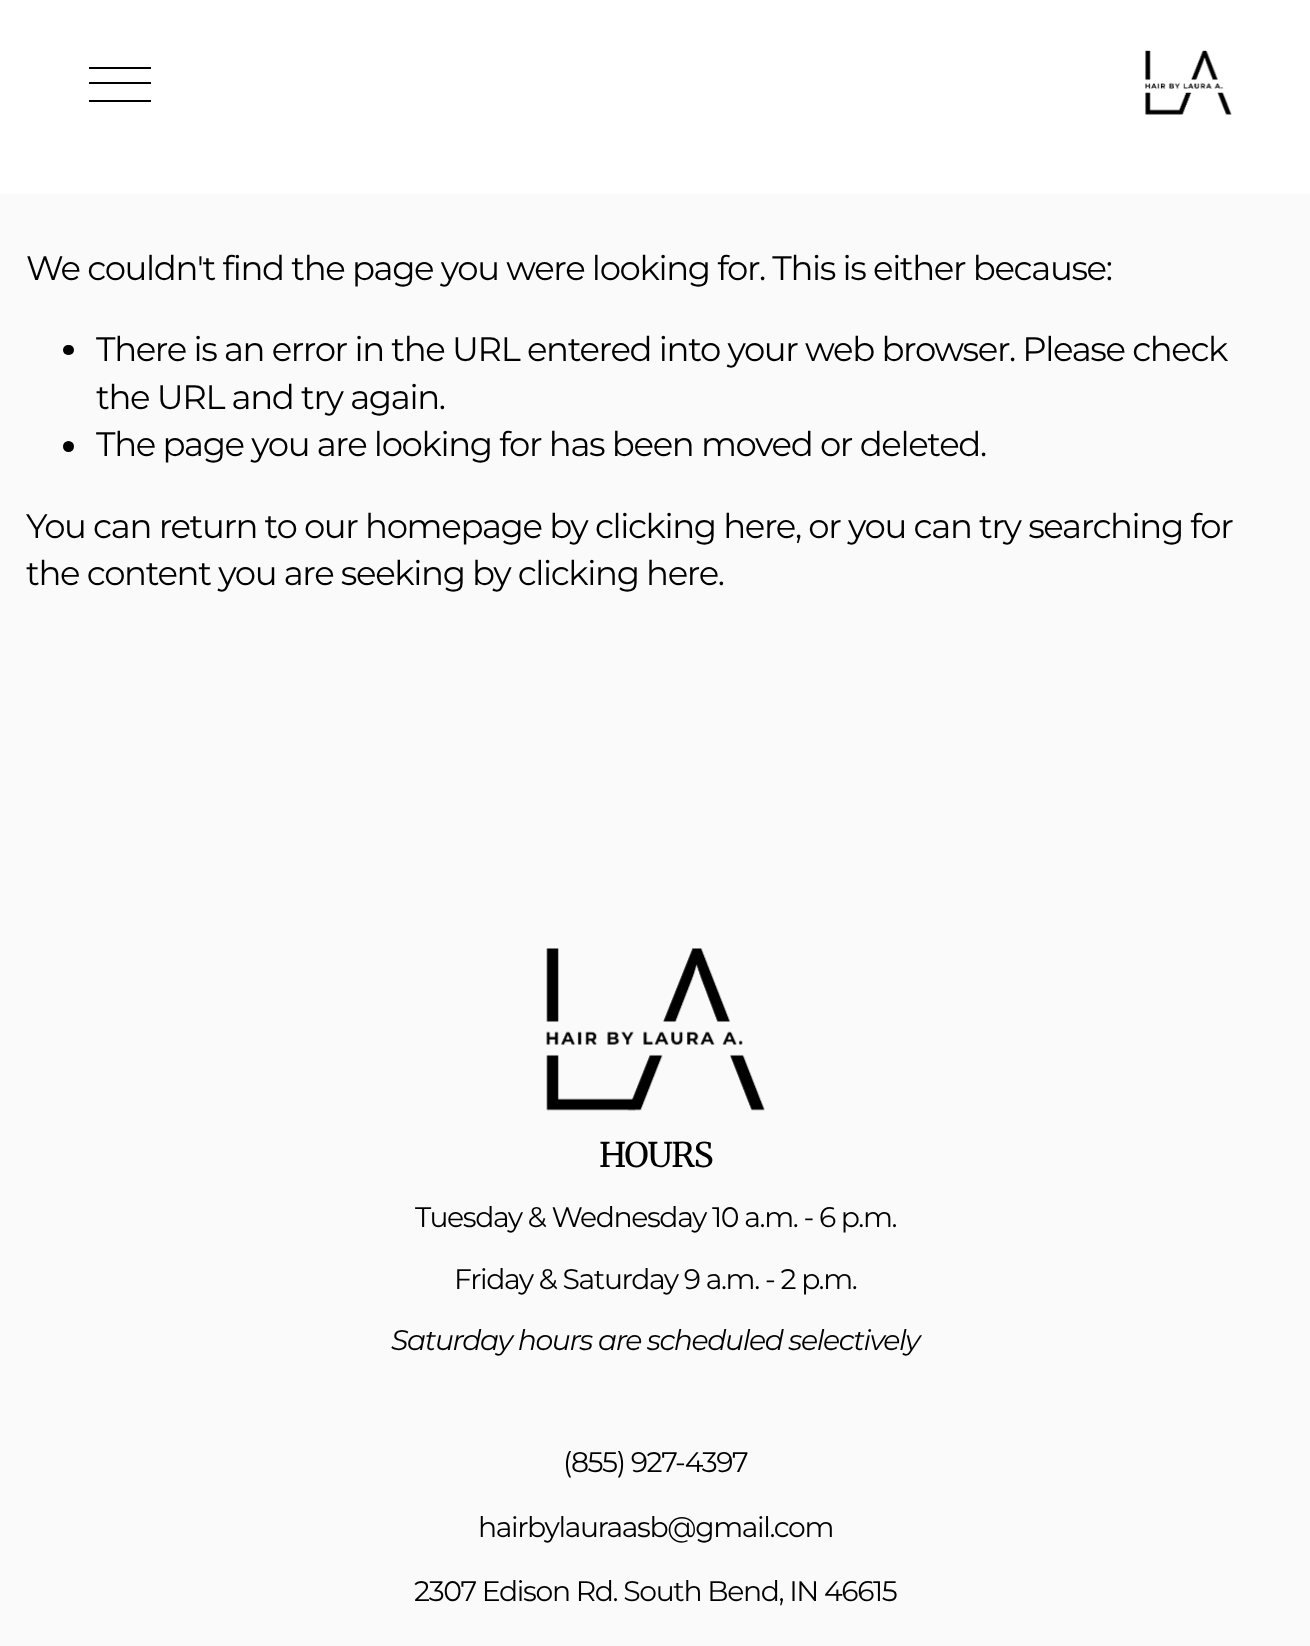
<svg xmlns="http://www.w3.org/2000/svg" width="1310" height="1646">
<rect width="100%" height="100%" fill="#fafafa"/>
<rect width="1310" height="194" fill="#fff"/>
<rect x="89" y="67" width="62" height="2" fill="#000"/>
<rect x="89" y="82" width="62" height="2" fill="#000"/>
<rect x="89" y="100" width="62" height="2" fill="#000"/>
<image x="1145" y="50" width="87" height="65" href="media/1.png"/>
<text x="26" y="280" style="font-family:Montserrat;font-size:33.95px;letter-spacing:-1.35px;fill:#000">We couldn't find the page you were looking for. This is either because:</text>
<rect x="63" y="345" width="11" height="10" rx="5" fill="#000"/>
<text x="96" y="361" style="font-family:Montserrat;font-size:33.95px;letter-spacing:-1.35px;fill:#000">There is an error in the URL entered into your web browser. Please check</text>
<text x="96" y="409" style="font-family:Montserrat;font-size:33.95px;letter-spacing:-1.35px;fill:#000">the URL and try again.</text>
<circle cx="68.5" cy="446.5" r="5.5" fill="#000"/>
<text x="96" y="456" style="font-family:Montserrat;font-size:33.95px;letter-spacing:-1.35px;fill:#000">The page you are looking for has been moved or deleted.</text>
<text x="26" y="538" style="font-family:Montserrat;font-size:33.95px;letter-spacing:-1.35px;fill:#000">You can return to our homepage by clicking here, or you can try searching for</text>
<text x="26" y="585" style="font-family:Montserrat;font-size:33.95px;letter-spacing:-1.35px;fill:#000">the content you are seeking by clicking here.</text>
<image x="546" y="948" width="219" height="163" href="media/2.png"/>
<text x="599" y="1167" style="font-family:Merriweather;font-size:33.95px;letter-spacing:-1.35px;fill:#000">HOURS</text>
<text x="415" y="1227" style="font-family:Montserrat;font-size:28.25px;letter-spacing:-1.35px;fill:#000">Tuesday &amp; Wednesday 10 a.m. - 6 p.m.</text>
<text x="454" y="1289" style="font-family:Montserrat;font-size:28.25px;letter-spacing:-1.35px;fill:#000">Friday &amp; Saturday 9 a.m. - 2 p.m.</text>
<text x="391" y="1350" style="font-family:Montserrat;font-size:28.25px;font-style:italic;letter-spacing:-1.35px;fill:#000">Saturday hours are scheduled selectively</text>
<text x="563" y="1472" style="font-family:Montserrat;font-size:28.25px;letter-spacing:-1.35px;fill:#000">(855) 927-4397</text>
<text x="478" y="1537" style="font-family:Montserrat;font-size:28.25px;letter-spacing:-1.35px;fill:#000">hairbylauraasb@gmail.com</text>
<text x="414" y="1601" style="font-family:Montserrat;font-size:28.25px;letter-spacing:-1.35px;fill:#000">2307 Edison Rd. South Bend, IN 46615</text>
</svg>
